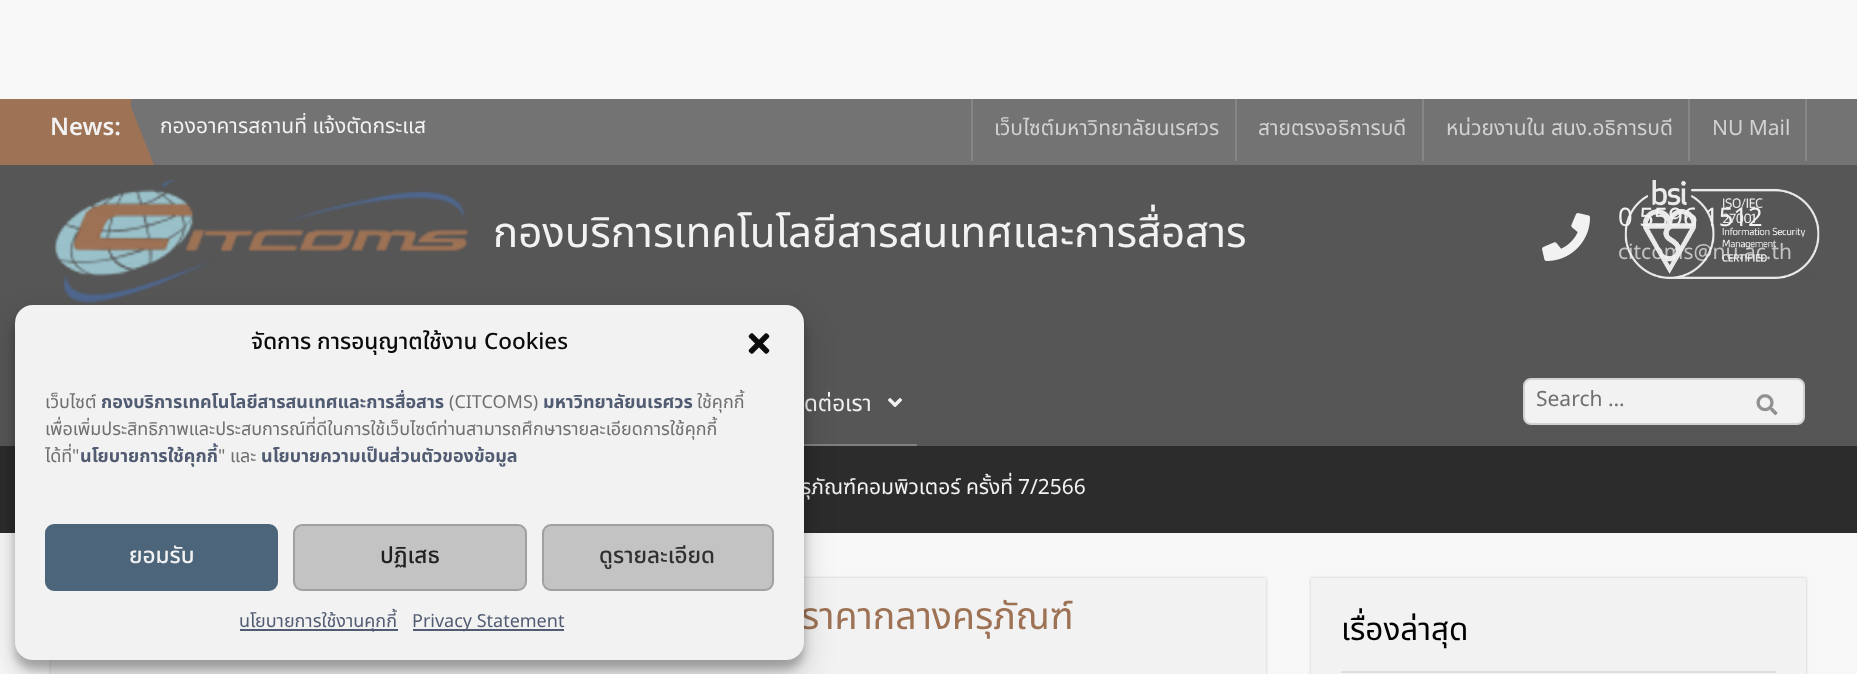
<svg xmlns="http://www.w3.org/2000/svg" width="1857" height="674">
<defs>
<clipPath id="clip1"><rect x="161" y="113" width="280" height="31"/></clipPath>
<clipPath id="clip2"><rect x="45" y="390" width="729" height="104"/></clipPath>
</defs>
<rect width="100%" height="100%" fill="#f8f8f8"/>
<rect x="131" y="99" width="1726" height="66" fill="#737373"/>
<rect y="99" width="131" height="66" fill="#9d7255"/>
<text x="50" y="135" style="font-family:Noto Sans;font-size:24px;font-weight:600;fill:#f2f2f2">News:</text>
<path d="M130 165v-61l24 61z" fill="#9d7255"/>
<g clip-path="url(#clip1)">
<text x="160" y="133" style="font-family:Noto Sans Thai;font-size:21px;fill:#f2f2f2">กองอาคารสถานที่ แจ้งตัดกระแส</text>
</g>
<rect x="1235" y="99" width="2" height="62" fill="#868686"/>
<rect x="971" y="99" width="2" height="62" fill="#868686"/>
<text x="994" y="135" style="font-family:Noto Sans Thai;font-size:21px;fill:#d2d2d2">เว็บไซต์มหาวิทยาลัยนเรศวร</text>
<rect x="1422" y="99" width="2" height="62" fill="#868686"/>
<text x="1258" y="135" style="font-family:Noto Sans Thai;font-size:21px;fill:#d2d2d2">สายตรงอธิการบดี</text>
<rect x="1688" y="99" width="2" height="62" fill="#868686"/>
<text x="1446" y="135" style="font-family:Noto Sans Thai;font-size:21px;fill:#d2d2d2">หน่วยงานใน สนง อธิการบดี</text>
<text x="1587" y="135" style="font-family:Noto Sans;font-size:21px;fill:#d2d2d2">.</text>
<rect x="1805" y="99" width="2" height="62" fill="#868686"/>
<text x="1712" y="135" style="font-family:Noto Sans;font-size:21px;fill:#d2d2d2">NU Mail</text>
<rect y="165" width="1857" height="281" fill="#565656"/>
<image x="53" y="180" width="416" height="124" href="media/1.png"/>
<text x="493" y="247" style="font-family:Noto Sans Thai;font-size:42px;fill:#f2f2f2">กองบริการเทคโนโลยีสารสนเทศและการสื่อสาร</text>
<image x="1542" y="213" width="48" height="48" href="media/2.png"/>
<text x="1618" y="226" style="font-family:Noto Sans;font-size:25.5px;fill:#f2f2f2">0 5596 1512</text>
<text x="1618" y="259" style="font-family:Noto Sans;font-size:21px;fill:#c3c3c3">citcoms@nu.ac.th</text>
<rect x="804" y="444" width="113" height="2" fill="#808080"/>
<text x="804" y="411" style="font-family:Noto Sans Thai;font-size:22.5px;fill:#f2f2f2">ิดต่อเรา</text>
<image x="888" y="398" width="14" height="9" href="media/3.png"/>
<rect x="1524" y="379" width="280" height="45" rx="7" fill="#f2f2f2" stroke="#d2d2d2" stroke-width="2"/>
<text x="1536" y="406" style="font-family:Noto Sans;font-size:21px;fill:#6f6f6f">Search …</text>
<image x="1756" y="394" width="22" height="22" href="media/4.png"/>
<rect y="446" width="1857" height="87" fill="#2c2c2c"/>
<text x="801" y="494" style="font-family:Noto Sans Thai;font-size:21px;fill:#f2f2f2">รุภัณฑ์คอมพิวเตอร์ ครั้งที่</text>
<text x="1018" y="494" style="font-family:Noto Sans;font-size:21px;fill:#f2f2f2">7/2566</text>
<rect x="51" y="578" width="1215" height="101" fill="#c5c5c5" filter="blur(1.5px)"/>
<rect x="51" y="578" width="1215" height="96" fill="#f2f2f2"/>
<text x="801" y="629" style="font-family:Noto Sans Thai;font-size:37.5px;fill:#9d7255">ราคากลางครุภัณฑ์</text>
<rect x="1311" y="578" width="495" height="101" fill="#c5c5c5" filter="blur(1.5px)"/>
<rect x="1311" y="578" width="495" height="96" fill="#f2f2f2"/>
<rect x="1341" y="671" width="435" height="2" fill="#dee0e0"/>
<text x="1341" y="640" style="font-family:Noto Sans Thai;font-size:31.5px;fill:#000">เรื่องล่าสุด</text>
<image x="1624" y="180" width="196" height="99" href="media/5.png"/>
<rect x="15" y="314" width="789" height="355" rx="18" fill="#0000003b" filter="blur(4.5px)"/>
<rect x="15" y="320" width="789" height="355" rx="18" fill="#00000030" filter="blur(15px)"/>
<rect x="15" y="305" width="789" height="355" rx="18" fill="#f2f2f2"/>
<text x="251" y="349" style="font-family:Noto Sans Thai;font-size:22.5px;font-weight:500;fill:#0b0b0b">จัดการ การอนุญาตใช้งาน</text>
<text x="484" y="349" style="font-family:Noto Sans;font-size:22.5px;font-weight:500;fill:#0b0b0b">Cookies</text>
<image x="748" y="333" width="22" height="21" href="media/6.png"/>
<g clip-path="url(#clip2)">
<text x="45" y="408" style="font-family:Noto Sans Thai;font-size:18px;fill:#6f6f6f">เว็บไซต์</text>
<text x="101" y="408" style="font-family:Noto Sans Thai;font-size:18px;font-weight:bold;fill:#515c72">กองบริการเทคโนโลยีสารสนเทศและการสื่อสาร</text>
</g>
<text x="449" y="408" style="font-family:Noto Sans;font-size:18px;fill:#6f6f6f">(CITCOMS)</text>
<text x="543" y="408" style="font-family:Noto Sans Thai;font-size:18px;font-weight:bold;fill:#515c72">มหาวิทยาลัยนเรศวร</text>
<text x="697" y="408" style="font-family:Noto Sans Thai;font-size:18px;fill:#6f6f6f">ใช้คุกกี้</text>
<g clip-path="url(#clip2)">
<text x="45" y="435" style="font-family:Noto Sans Thai;font-size:18px;fill:#6f6f6f">เพื่อเพิ่มประสิทธิภาพและประสบการณ์ที่ดีในการใช้เว็บไซต์ท่านสามารถศึกษารายละเอียดการใช้คุกกี้</text>
<text x="45" y="462" style="font-family:Noto Sans Thai;font-size:18px;fill:#6f6f6f">ได้ที่</text>
</g>
<text x="72" y="462" style="font-family:Noto Sans;font-size:18px;fill:#6f6f6f">"</text>
<text x="80" y="462" style="font-family:Noto Sans Thai;font-size:18px;font-weight:bold;fill:#515c72">นโยบายการใช้คุกกี้</text>
<text x="218" y="462" style="font-family:Noto Sans;font-size:18px;fill:#6f6f6f">"</text>
<text x="230" y="462" style="font-family:Noto Sans Thai;font-size:18px;fill:#6f6f6f">และ</text>
<text x="261" y="462" style="font-family:Noto Sans Thai;font-size:18px;font-weight:bold;fill:#515c72">นโยบายความเป็นส่วนตัวของข้อมูล</text>
<rect x="46" y="525" width="231" height="65" rx="8" fill="#4d657a" stroke="#4d657a" stroke-width="2"/>
<text x="129" y="563" style="font-family:Noto Sans Thai;font-size:22.5px;font-weight:500;fill:#f2f2f2">ยอมรับ</text>
<rect x="294" y="525" width="232" height="65" rx="8" fill="#c4c3c3" stroke="#a0a0a0" stroke-width="2"/>
<text x="380" y="563" style="font-family:Noto Sans Thai;font-size:22.5px;font-weight:500;fill:#202020">ปฏิเสธ</text>
<rect x="543" y="525" width="230" height="65" rx="8" fill="#c4c3c3" stroke="#a0a0a0" stroke-width="2"/>
<text x="599" y="563" style="font-family:Noto Sans Thai;font-size:22.5px;font-weight:500;fill:#303030">ดูรายละเอียด</text>
<rect x="240" y="629" width="158" height="2" fill="#515c72"/>
<text x="239" y="627" style="font-family:Noto Sans Thai;font-size:18px;fill:#515c72">นโยบายการใช้งานคุกกี้</text>
<rect x="413" y="629" width="151" height="2" fill="#515c72"/>
<text x="412" y="627" style="font-family:Noto Sans;font-size:18px;fill:#515c72">Privacy Statement</text>
</svg>
